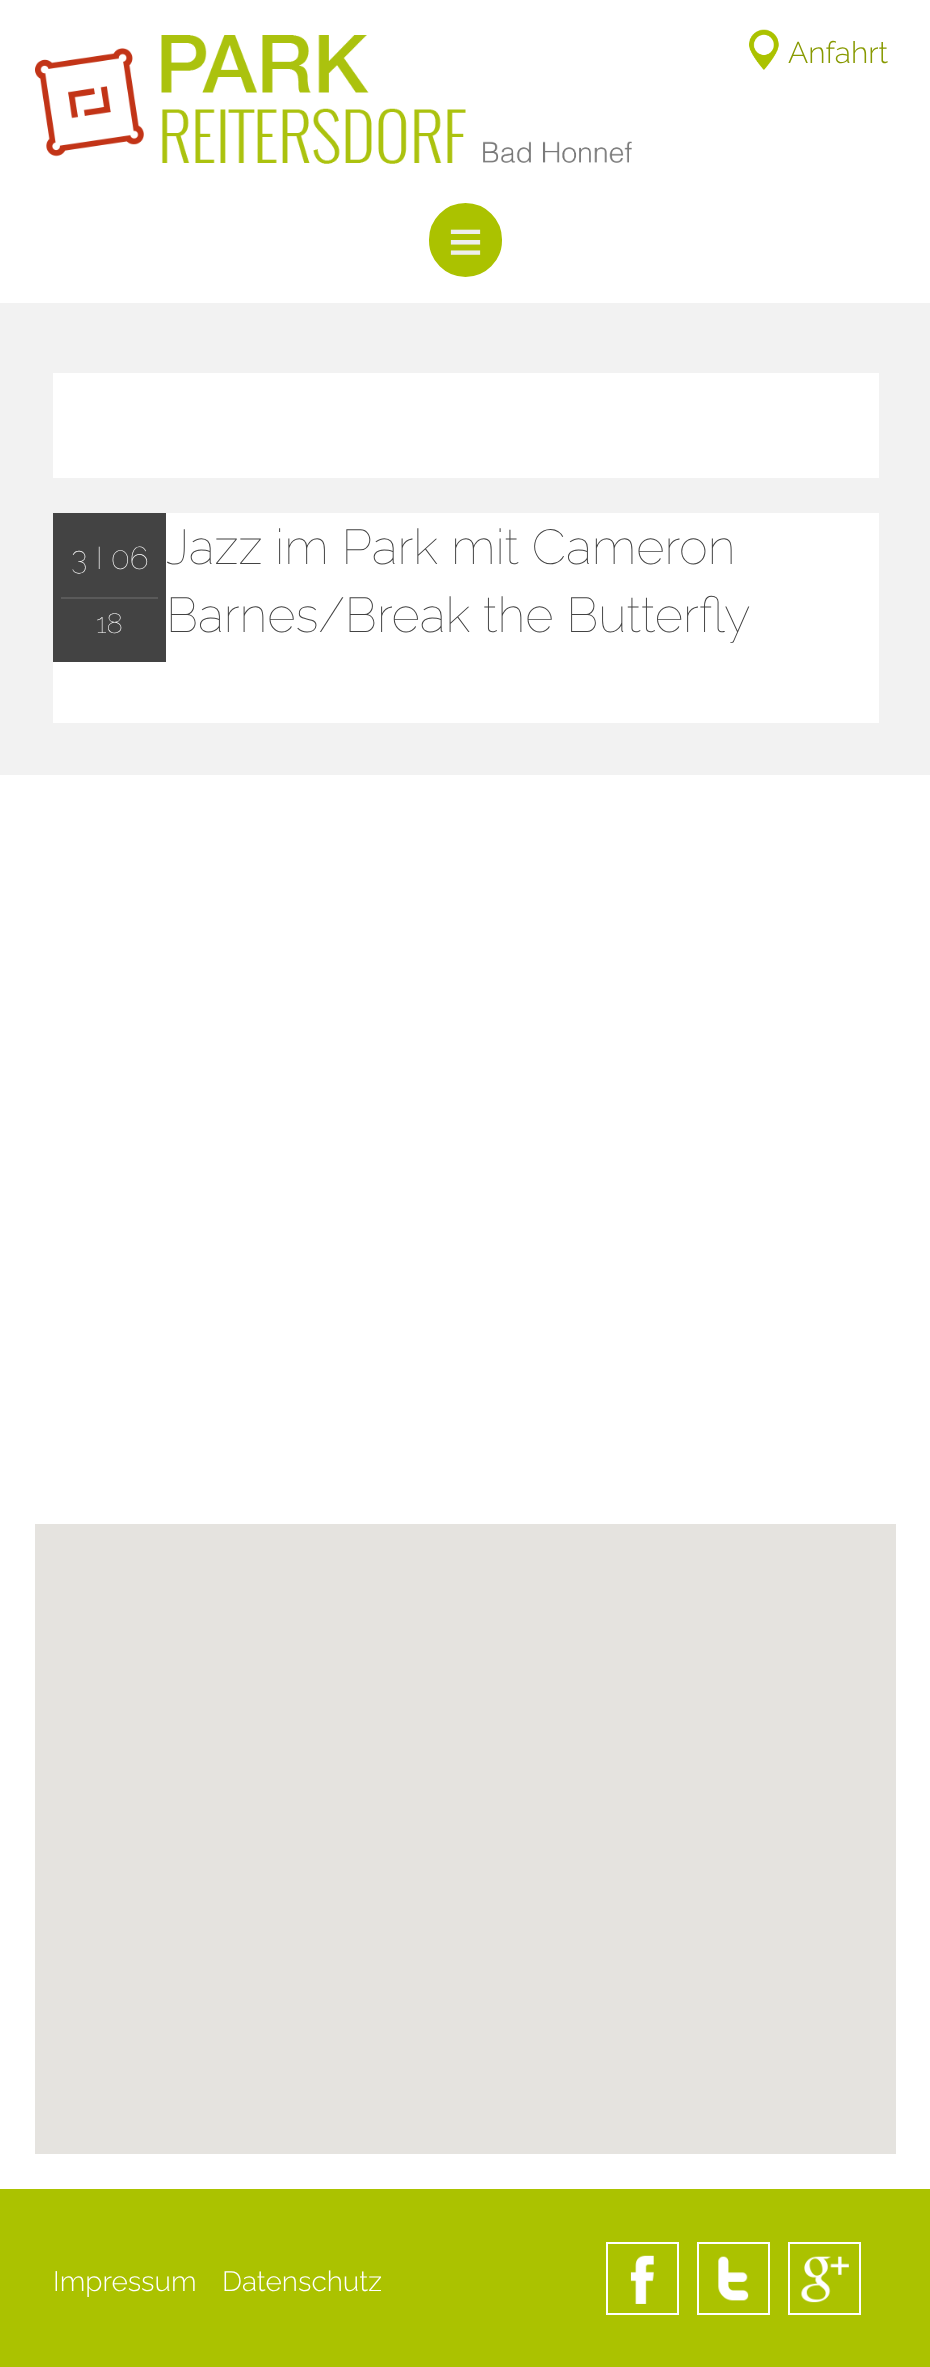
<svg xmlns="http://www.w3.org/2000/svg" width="930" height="2367">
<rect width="100%" height="100%" fill="#fff"/>
<image x="35" y="35" width="431" height="129" href="media/1.png"/>
<image x="483" y="141" width="149" height="22" href="media/2.png"/>
<image x="749" y="29" width="30" height="41" href="media/3.png"/>
<text x="788" y="63" style="font-family:Raleway;font-size:30px;font-weight:300;fill:#879900">Anfahrt</text>
<rect x="430" y="204" width="71" height="72" rx="35.5" fill="#abc200" stroke="#abc200" stroke-width="2"/>
<text x="448" y="262" style="font-family:Liberation Sans;font-size:60px;fill:#eee">≡</text>
<rect y="303" width="930" height="472" fill="#f2f2f2"/>
<rect x="53" y="373" width="826" height="105" fill="#fff"/>
<rect x="53" y="513" width="826" height="210" fill="#fff"/>
<rect x="53" y="513" width="113" height="149" fill="#434343"/>
<rect x="61" y="597" width="97" height="2" fill="#5a5a5a"/>
<text x="71" y="569" style="font-family:Raleway;font-size:31.5px;font-weight:100;fill:#fff">3 I 06</text>
<text x="96" y="633" style="font-family:Raleway;font-size:28px;font-weight:100;fill:#fff">18</text>
<text x="166" y="564" style="font-family:Raleway;font-size:49px;font-weight:100;fill:#434343">Jazz im Park mit Cameron</text>
<text x="166" y="632" style="font-family:Raleway;font-size:49px;font-weight:100;fill:#434343">Barnes/Break the Butterfly</text>
<rect x="35" y="1524" width="861" height="630" fill="#e5e3df"/>
<rect y="2189" width="930" height="178" fill="#abc200"/>
<text x="53" y="2291" style="font-family:Raleway;font-size:28px;font-weight:300;fill:#fff">Impressum</text>
<text x="222" y="2291" style="font-family:Raleway;font-size:28px;font-weight:300;fill:#fff">Datenschutz</text>
<rect x="607" y="2243" width="71" height="71" fill="none" stroke="#fff" stroke-width="2"/>
<image x="630" y="2255" width="24" height="49" href="media/4.png"/>
<rect x="698" y="2243" width="71" height="71" fill="none" stroke="#fff" stroke-width="2"/>
<image x="718" y="2256" width="31" height="45" href="media/5.png"/>
<rect x="789" y="2243" width="71" height="71" fill="none" stroke="#fff" stroke-width="2"/>
<image x="801" y="2256" width="48" height="47" href="media/6.png"/>
</svg>
